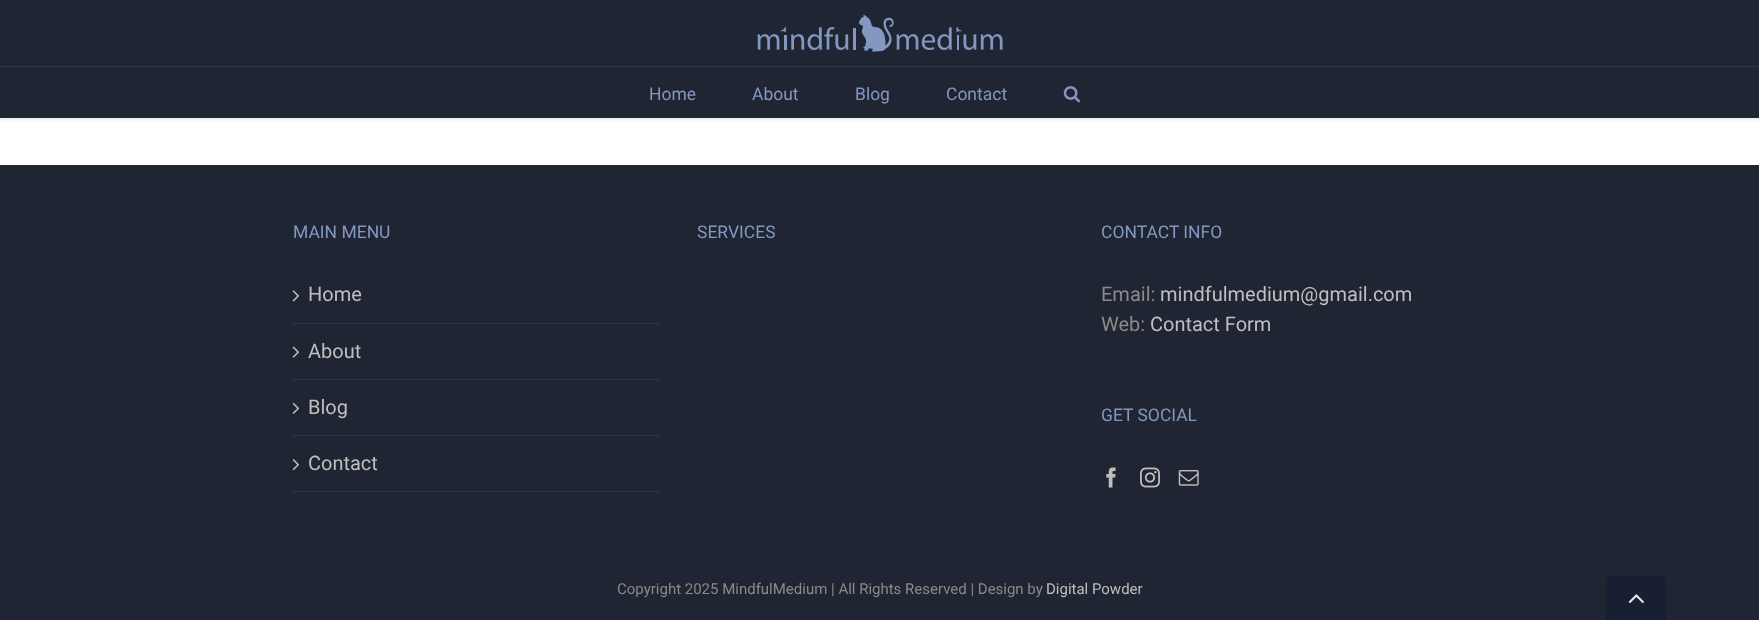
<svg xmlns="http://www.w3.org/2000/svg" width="1759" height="620">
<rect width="100%" height="100%" fill="#fff"/>
<rect y="1" width="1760" height="118" fill="#0000001f" filter="blur(2px)"/>
<rect width="1759" height="118" fill="#202533"/>
<rect y="66" width="1759" height="1" fill="#2c374b"/>
<image x="757" y="14" width="246" height="38" href="media/1.png"/>
<text x="649" y="100" style="font-family:Roboto;font-size:17.5px;fill:#8298c1">Home</text>
<text x="752" y="100" style="font-family:Roboto;font-size:17.5px;fill:#8298c1">About</text>
<text x="855" y="100" style="font-family:Roboto;font-size:17.5px;fill:#8298c1">Blog</text>
<text x="946" y="100" style="font-family:Roboto;font-size:17.5px;fill:#8298c1">Contact</text>
<image x="1063" y="86" width="17" height="17" href="media/2.png"/>
<rect y="165" width="1759" height="455" fill="#202533"/>
<text x="293" y="238" style="font-family:Roboto;font-size:17.5px;fill:#8298c1">MAIN MENU</text>
<rect x="293" y="323" width="366" height="1" fill="#2c374b"/>
<image x="292" y="290" width="8" height="12" href="media/3.png"/>
<text x="308" y="301" style="font-family:Roboto;font-size:20px;fill:#bfbfbf">Home</text>
<rect x="293" y="379" width="366" height="1" fill="#2c374b"/>
<image x="292" y="346" width="8" height="12" href="media/4.png"/>
<text x="308" y="358" style="font-family:Roboto;font-size:20px;fill:#bfbfbf">About</text>
<rect x="293" y="435" width="366" height="1" fill="#2c374b"/>
<image x="292" y="402" width="8" height="12" href="media/5.png"/>
<text x="308" y="414" style="font-family:Roboto;font-size:20px;fill:#bfbfbf">Blog</text>
<rect x="293" y="491" width="366" height="1" fill="#2c374b"/>
<image x="292" y="459" width="8" height="12" href="media/6.png"/>
<text x="308" y="470" style="font-family:Roboto;font-size:20px;fill:#bfbfbf">Contact</text>
<text x="697" y="238" style="font-family:Roboto;font-size:17.5px;fill:#8298c1">SERVICES</text>
<text x="1101" y="238" style="font-family:Roboto;font-size:17.5px;fill:#8298c1">CONTACT INFO</text>
<text x="1101" y="301" style="font-family:Roboto;font-size:20px;fill:#8c8989">Email:</text>
<text x="1160" y="301" style="font-family:Roboto;font-size:20px;fill:#bfbfbf">mindfulmedium@gmail.com</text>
<text x="1101" y="331" style="font-family:Roboto;font-size:20px;fill:#8c8989">Web:</text>
<text x="1150" y="331" style="font-family:Roboto;font-size:20px;fill:#bfbfbf">Contact Form</text>
<text x="1101" y="421" style="font-family:Roboto;font-size:17.5px;fill:#8298c1">GET SOCIAL</text>
<image x="1106" y="467" width="10" height="21" href="media/7.png"/>
<image x="1140" y="467" width="20" height="21" href="media/8.png"/>
<image x="1178" y="470" width="21" height="16" href="media/9.png"/>
<text x="617" y="594" style="font-family:Roboto;font-size:15px;fill:#8c8989">Copyright 2025 MindfulMedium | All Rights Reserved | Design by</text>
<text x="1046" y="594" style="font-family:Roboto;font-size:15px;fill:#bfbfbf">Digital Powder</text>
<path d="M1611 576h50c3 0 5 2 5 5v39h-60v-39c0-3 2-5 5-5z" fill="#191f32"/>
<image x="1628" y="594" width="16" height="10" href="media/10.png"/>
</svg>
